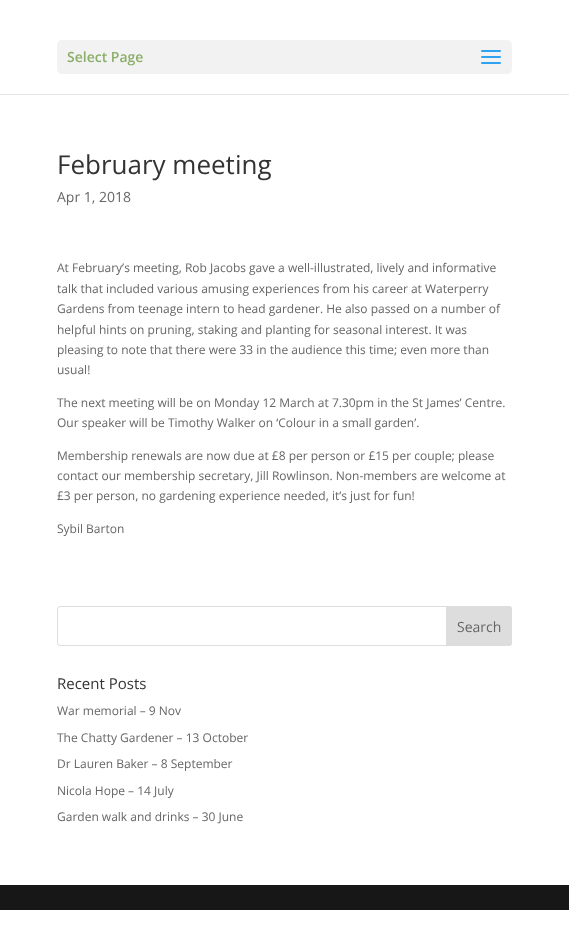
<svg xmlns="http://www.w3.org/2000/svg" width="569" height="939">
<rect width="100%" height="100%" fill="#fff"/>
<rect y="94" width="569" height="1" fill="#e6e6e6"/>
<rect x="57" y="40" width="455" height="34" rx="5" fill="#f2f2f2"/>
<text x="67" y="62" style="font-family:Open Sans;font-size:14px;font-weight:600;fill:#8baf6a">Select Page</text>
<image x="481" y="50" width="20" height="14" href="media/1.png"/>
<text x="57" y="174" style="font-family:Open Sans;font-size:26px;fill:#333">February meeting</text>
<text x="57" y="202" style="font-family:Open Sans;font-size:14px;fill:#666">Apr 1, 2018</text>
<text x="57" y="272" style="font-family:Open Sans;font-size:12px;fill:#666">At February’s meeting, Rob Jacobs gave a well-illustrated, lively and informative</text>
<text x="57" y="293" style="font-family:Open Sans;font-size:12px;fill:#666">talk that included various amusing experiences from his career at Waterperry</text>
<text x="57" y="313" style="font-family:Open Sans;font-size:12px;fill:#666">Gardens from teenage intern to head gardener. He also passed on a number of</text>
<text x="57" y="334" style="font-family:Open Sans;font-size:12px;fill:#666">helpful hints on pruning, staking and planting for seasonal interest. It was</text>
<text x="57" y="354" style="font-family:Open Sans;font-size:12px;fill:#666">pleasing to note that there were 33 in the audience this time; even more than</text>
<text x="57" y="374" style="font-family:Open Sans;font-size:12px;fill:#666">usual!</text>
<text x="57" y="407" style="font-family:Open Sans;font-size:12px;fill:#666">The next meeting will be on Monday 12 March at 7.30pm in the St James’ Centre.</text>
<text x="57" y="427" style="font-family:Open Sans;font-size:12px;fill:#666">Our speaker will be Timothy Walker on ‘Colour in a small garden’.</text>
<text x="57" y="460" style="font-family:Open Sans;font-size:12px;fill:#666">Membership renewals are now due at £8 per person or £15 per couple; please</text>
<text x="57" y="480" style="font-family:Open Sans;font-size:12px;fill:#666">contact our membership secretary, Jill Rowlinson. Non-members are welcome at</text>
<text x="57" y="500" style="font-family:Open Sans;font-size:12px;fill:#666">£3 per person, no gardening experience needed, it’s just for fun!</text>
<text x="57" y="533" style="font-family:Open Sans;font-size:12px;fill:#666">Sybil Barton</text>
<rect x="57.5" y="606.5" width="454" height="39" rx="2.5" fill="none" stroke="#ddd"/>
<path d="M446.5 606.5h62.5c1.5 0 2.5 1 2.5 2.5v34c0 1.5-1 2.5-2.5 2.5h-62.5z" fill="#ddd" stroke="#ddd"/>
<text x="457" y="632" style="font-family:Open Sans;font-size:14px;fill:#666">Search</text>
<text x="57" y="689" style="font-family:Open Sans;font-size:15px;fill:#333">Recent Posts</text>
<text x="57" y="715" style="font-family:Open Sans;font-size:12px;fill:#666">War memorial – 9 Nov</text>
<text x="57" y="742" style="font-family:Open Sans;font-size:12px;fill:#666">The Chatty Gardener – 13 October</text>
<text x="57" y="768" style="font-family:Open Sans;font-size:12px;fill:#666">Dr Lauren Baker – 8 September</text>
<text x="57" y="795" style="font-family:Open Sans;font-size:12px;fill:#666">Nicola Hope – 14 July</text>
<text x="57" y="821" style="font-family:Open Sans;font-size:12px;fill:#666">Garden walk and drinks – 30 June</text>
<rect y="885" width="569" height="25" fill="#171717"/>
</svg>
